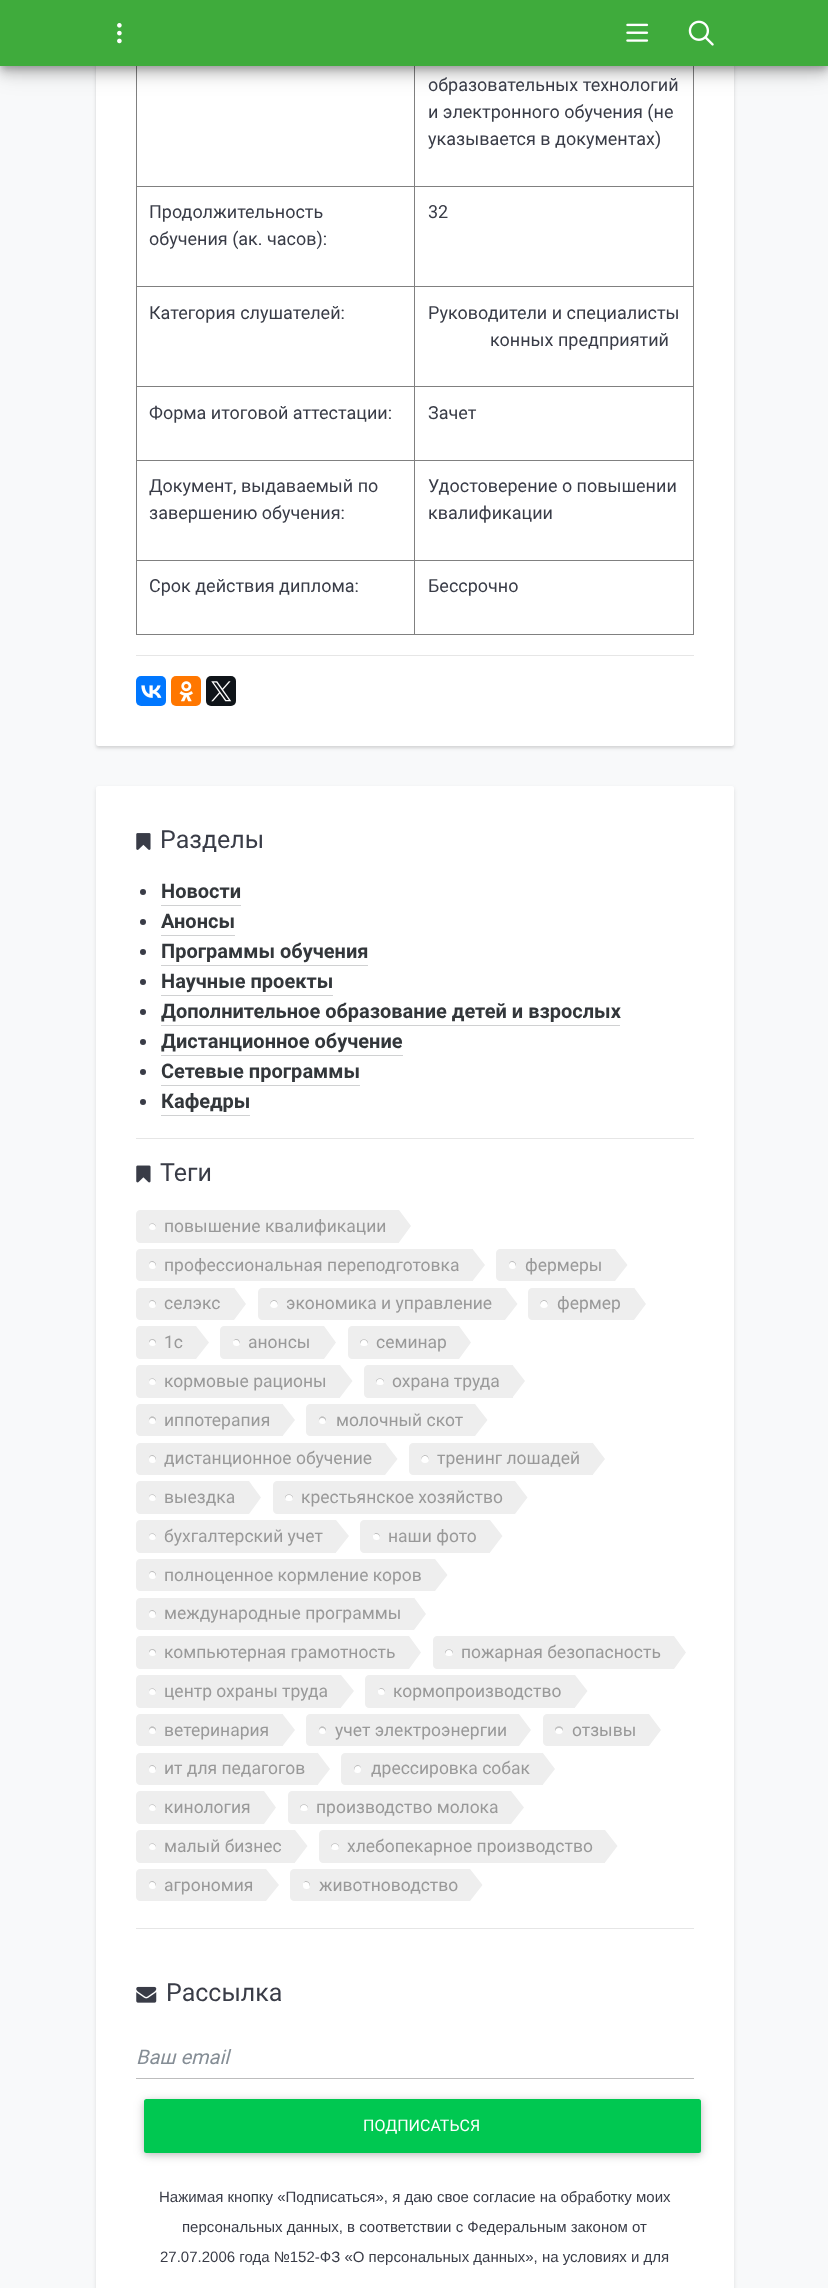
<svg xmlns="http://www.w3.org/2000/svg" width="828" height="2288">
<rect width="100%" height="100%" fill="#f8f9fa"/>
<rect x="96" y="-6" width="638" height="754" rx="2.5" fill="#0000000f" filter="blur(1px)"/>
<rect x="96" y="-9" width="638" height="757" rx="2.5" fill="#0000001a" filter="blur(2px)"/>
<rect x="96" y="-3" width="638" height="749" rx="2.5" fill="#fff"/>
<rect x="693" y="66" width="1" height="569" fill="#808080"/>
<rect x="136" y="634" width="558" height="1" fill="#808080"/>
<rect x="136" y="66" width="1" height="569" fill="#808080"/>
<rect x="414" y="186" width="280" height="1" fill="#808080"/>
<rect x="414" y="286" width="280" height="1" fill="#808080"/>
<rect x="414" y="386" width="280" height="1" fill="#808080"/>
<rect x="414" y="460" width="280" height="1" fill="#808080"/>
<rect x="414" y="560" width="280" height="1" fill="#808080"/>
<rect x="414" y="560" width="1" height="75" fill="#808080"/>
<rect x="136" y="560" width="279" height="1" fill="#808080"/>
<rect x="414" y="460" width="1" height="101" fill="#808080"/>
<rect x="136" y="460" width="279" height="1" fill="#808080"/>
<rect x="414" y="386" width="1" height="75" fill="#808080"/>
<rect x="136" y="386" width="279" height="1" fill="#808080"/>
<rect x="414" y="286" width="1" height="102" fill="#808080"/>
<rect x="136" y="286" width="279" height="1" fill="#808080"/>
<rect x="414" y="186" width="1" height="102" fill="#808080"/>
<rect x="136" y="186" width="279" height="1" fill="#808080"/>
<rect x="414" y="66" width="1" height="122" fill="#808080"/>
<rect y="8" width="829" height="66" fill="#0000001f" filter="blur(11px)"/>
<rect y="8" width="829" height="66" fill="#00000024" filter="blur(6px)"/>
<rect x="1" y="5" width="827" height="64" fill="#00000033" filter="blur(3px)"/>
<rect width="828" height="66" fill="#3fab3c"/>
<image x="117" y="23" width="5" height="21" href="media/1.png"/>
<image x="626" y="23" width="23" height="19" href="media/2.png"/>
<image x="688" y="20" width="26" height="26" href="media/3.png"/>
<text x="428" y="91" style="font-family:Roboto;font-size:18px;fill:#393c47">образовательных технологий</text>
<text x="428" y="118" style="font-family:Roboto;font-size:18px;fill:#393c47">и электронного обучения (не</text>
<text x="428" y="145" style="font-family:Roboto;font-size:18px;fill:#393c47">указывается в документах)</text>
<text x="149" y="218" style="font-family:Roboto;font-size:18px;fill:#393c47">Продолжительность</text>
<text x="149" y="245" style="font-family:Roboto;font-size:18px;fill:#393c47">обучения (ак. часов):</text>
<text x="428" y="218" style="font-family:Roboto;font-size:18px;fill:#393c47">32</text>
<text x="149" y="319" style="font-family:Roboto;font-size:18px;fill:#393c47">Категория слушателей:</text>
<text x="428" y="319" style="font-family:Roboto;font-size:18px;fill:#393c47">Руководители и специалисты</text>
<text x="490" y="346" style="font-family:Roboto;font-size:18px;fill:#393c47">конных предприятий</text>
<text x="149" y="419" style="font-family:Roboto;font-size:18px;fill:#393c47">Форма итоговой аттестации:</text>
<text x="428" y="419" style="font-family:Roboto;font-size:18px;fill:#393c47">Зачет</text>
<text x="149" y="492" style="font-family:Roboto;font-size:18px;fill:#393c47">Документ, выдаваемый по</text>
<text x="149" y="519" style="font-family:Roboto;font-size:18px;fill:#393c47">завершению обучения:</text>
<text x="428" y="492" style="font-family:Roboto;font-size:18px;fill:#393c47">Удостоверение о повышении</text>
<text x="428" y="519" style="font-family:Roboto;font-size:18px;fill:#393c47">квалификации</text>
<text x="149" y="592" style="font-family:Roboto;font-size:18px;fill:#393c47">Срок действия диплома:</text>
<text x="428" y="592" style="font-family:Roboto;font-size:18px;fill:#393c47">Бессрочно</text>
<rect x="136" y="655" width="558" height="1" fill="#e6e6e6"/>
<rect x="136" y="676" width="30" height="30" rx="5" fill="#07f"/>
<image x="141" y="685" width="21" height="13" href="media/4.png"/>
<rect x="171" y="676" width="30" height="30" rx="5" fill="#f70"/>
<image x="179" y="681" width="14" height="21" href="media/5.png"/>
<rect x="206" y="676" width="30" height="30" rx="5" fill="#0f1419"/>
<image x="211" y="681" width="21" height="21" href="media/6.png"/>
<rect x="96" y="788" width="638" height="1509" rx="2.5" fill="#0000001a" filter="blur(2px)"/>
<rect x="96" y="786" width="638" height="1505" rx="2.5" fill="#fff"/>
<image x="136" y="833" width="15" height="17" href="media/7.png"/>
<text x="160" y="848" style="font-family:Roboto;font-size:25px;fill:#393c47">Разделы</text>
<circle cx="143" cy="892" r="3" fill="#393c47"/>
<text x="161" y="898" style="font-family:Roboto;font-size:20px;font-weight:bold;fill:#33373b">Новости</text>
<rect x="161" y="905" width="80" height="1" fill="#d0d1d2"/>
<circle cx="143" cy="922" r="3" fill="#393c47"/>
<text x="161" y="928" style="font-family:Roboto;font-size:20px;font-weight:bold;fill:#33373b">Анонсы</text>
<rect x="161" y="935" width="74" height="1" fill="#d0d1d2"/>
<circle cx="143" cy="952" r="3" fill="#393c47"/>
<text x="161" y="958" style="font-family:Roboto;font-size:20px;font-weight:bold;fill:#33373b">Программы обучения</text>
<rect x="161" y="965" width="207" height="1" fill="#d0d1d2"/>
<circle cx="143" cy="982" r="3" fill="#393c47"/>
<text x="161" y="988" style="font-family:Roboto;font-size:20px;font-weight:bold;fill:#33373b">Научные проекты</text>
<rect x="161" y="995" width="172" height="1" fill="#d0d1d2"/>
<circle cx="143" cy="1012" r="3" fill="#393c47"/>
<text x="161" y="1018" style="font-family:Roboto;font-size:20px;font-weight:bold;fill:#33373b">Дополнительное образование детей и взрослых</text>
<rect x="161" y="1025" width="459" height="1" fill="#d0d1d2"/>
<circle cx="143" cy="1042" r="3" fill="#393c47"/>
<text x="161" y="1048" style="font-family:Roboto;font-size:20px;font-weight:bold;fill:#33373b">Дистанционное обучение</text>
<rect x="161" y="1055" width="242" height="1" fill="#d0d1d2"/>
<circle cx="143" cy="1072" r="3" fill="#393c47"/>
<text x="161" y="1078" style="font-family:Roboto;font-size:20px;font-weight:bold;fill:#33373b">Сетевые программы</text>
<rect x="161" y="1085" width="199" height="1" fill="#d0d1d2"/>
<circle cx="143" cy="1102" r="3" fill="#393c47"/>
<text x="161" y="1108" style="font-family:Roboto;font-size:20px;font-weight:bold;fill:#33373b">Кафедры</text>
<rect x="161" y="1115" width="89" height="1" fill="#d0d1d2"/>
<rect x="136" y="1138" width="558" height="1" fill="#e6e6e6"/>
<image x="136" y="1165" width="15" height="18" href="media/8.png"/>
<text x="160" y="1181" style="font-family:Roboto;font-size:25px;fill:#393c47">Теги</text>
<path d="M140 1210h271v33h-271c-2 0-4-2-4-4v-25c0-2 2-4 4-4z" fill="#eee"/>
<circle cx="152.5" cy="1226.5" r="3.5" fill="#fff"/>
<path d="M152 1224c2.5 0 4 2 3.5 4c2.5-5.5-7.5-7-6.5-1c0-1.5 1-3 3-3z" fill="#00000040"/>
<text x="164" y="1232" style="font-family:Roboto;font-size:17.5px;fill:#999">повышение квалификации</text>
<rect x="399" y="1210" width="12" height="33" fill="#fff"/>
<path d="M399 1242.5v-32.5l12 16z" fill="#eee"/>
<path d="M140 1249h345v32h-345c-2 0-4-2-4-4v-24c0-2 2-4 4-4z" fill="#eee"/>
<rect x="149" y="1261" width="7" height="8" rx="3.5" fill="#fff"/>
<path d="M152 1262c3 0 4 3 3.5 5c3-6-7-9-6.5-1.5c0-1.5 1-3.5 3-3.5z" fill="#00000040"/>
<text x="164" y="1271" style="font-family:Roboto;font-size:17.5px;fill:#999">профессиональная переподготовка</text>
<rect x="473" y="1249" width="12" height="32" fill="#fff"/>
<path d="M472.5 1281v-32l12.5 16z" fill="#eee"/>
<path d="M500 1249h128v32h-128c-2 0-4-2-4-4v-24c0-2 2-4 4-4z" fill="#eee"/>
<rect x="509" y="1261" width="7" height="8" rx="3.5" fill="#fff"/>
<path d="M512 1262c3 0 4 3 3.5 5c3-6-7-9-6.5-1.5c0-1.5 1-3.5 3-3.5z" fill="#00000040"/>
<text x="525" y="1271" style="font-family:Roboto;font-size:17.5px;fill:#999">фермеры</text>
<rect x="615" y="1249" width="13" height="32" fill="#fff"/>
<path d="M615 1281v-32l12.5 16z" fill="#eee"/>
<path d="M140 1288h106v32h-106c-2 0-4-2-4-4v-24c0-2 2-4 4-4z" fill="#eee"/>
<rect x="149" y="1300" width="7" height="8" rx="3.5" fill="#fff"/>
<path d="M152 1301c3 0 4 3 3.5 5c3-6-7-9-6.5-1.5c0-1.5 1-3.5 3-3.5z" fill="#00000040"/>
<text x="164" y="1309" style="font-family:Roboto;font-size:17.5px;fill:#999">селэкс</text>
<rect x="234" y="1288" width="12" height="32" fill="#fff"/>
<path d="M234 1320v-32.5l12 16.5z" fill="#eee"/>
<path d="M262 1288h256v32h-256c-2 0-4-2-4-4v-24c0-2 2-4 4-4z" fill="#eee"/>
<circle cx="274" cy="1304" r="4" fill="#fff"/>
<path d="M274 1301c2.5 0 4 2.5 3.5 4.5c.5-1 .5-2 0-3c-2-5-9-1.5-7 3c-.5-2 1-4.5 3.5-4.5z" fill="#00000040"/>
<text x="286" y="1309" style="font-family:Roboto;font-size:17.5px;fill:#999">экономика и управление</text>
<rect x="505" y="1288" width="13" height="32" fill="#fff"/>
<path d="M505 1320v-32.5l12.5 16.5z" fill="#eee"/>
<path d="M532 1288h114v32h-114c-2 0-4-2-4-4v-24c0-2 2-4 4-4z" fill="#eee"/>
<circle cx="544" cy="1304" r="4" fill="#fff"/>
<path d="M544 1301c2.5 0 4 2.5 3.5 4.5c.5-1 .5-2 0-3c-2-5-9-1.5-7 3c-.5-2 1-4.5 3.5-4.5z" fill="#00000040"/>
<text x="557" y="1309" style="font-family:Roboto;font-size:17.5px;fill:#999">фермер</text>
<rect x="634" y="1288" width="12" height="32" fill="#fff"/>
<path d="M634 1320v-32.5l12 16.5z" fill="#eee"/>
<path d="M140 1326h69v33h-69c-2 0-4-2-4-4v-25c0-2 2-4 4-4z" fill="#eee"/>
<circle cx="152.5" cy="1342.5" r="3.5" fill="#fff"/>
<path d="M152 1340c2.5 0 3.5 2 3.5 4c2.5-6-7.5-7-6.5-1c.5-1.5 1.5-3 3-3z" fill="#00000040"/>
<text x="164" y="1348" style="font-family:Roboto;font-size:17.5px;fill:#999">1с</text>
<rect x="196" y="1326" width="13" height="33" fill="#fff"/>
<path d="M196 1359v-33l13 16.5z" fill="#eee"/>
<path d="M224 1326h112v33h-112c-2 0-4-2-4-4v-25c0-2 2-4 4-4z" fill="#eee"/>
<circle cx="236.5" cy="1342.5" r="3.5" fill="#fff"/>
<path d="M236 1340c2.5 0 3.5 2 3.5 4c2-4.5-4.5-7-6-3c.5-.5 1.5-1 2.5-1z" fill="#00000040"/>
<text x="248" y="1348" style="font-family:Roboto;font-size:17.5px;fill:#999">анонсы</text>
<rect x="324" y="1326" width="12" height="33" fill="#fff"/>
<path d="M324 1359v-33l12 16.5z" fill="#eee"/>
<path d="M352 1326h119v33h-119c-2 0-4-2-4-4v-25c0-2 2-4 4-4z" fill="#eee"/>
<rect x="360" y="1339" width="8" height="7" rx="3.5" fill="#fff"/>
<path d="M364 1340c2.5 0 3.5 2 3.5 4c3-6.5-10-6.5-7 0c0-2 1-4 3.5-4z" fill="#00000040"/>
<text x="376" y="1348" style="font-family:Roboto;font-size:17.5px;fill:#999">семинар</text>
<rect x="459" y="1326" width="12" height="33" fill="#fff"/>
<path d="M459 1359v-33l12 16.5z" fill="#eee"/>
<path d="M140 1365h213v33h-213c-2 0-4-2-4-4v-25c0-2 2-4 4-4z" fill="#eee"/>
<circle cx="152.5" cy="1381.5" r="3.5" fill="#fff"/>
<path d="M152 1379c2.5 0 4 2 3.5 4c2.5-5.5-7.5-7-6.5-1c0-1.5 1-3 3-3z" fill="#00000040"/>
<text x="164" y="1387" style="font-family:Roboto;font-size:17.5px;fill:#999">кормовые рационы</text>
<rect x="340" y="1365" width="13" height="33" fill="#fff"/>
<path d="M340 1397.5v-32.5l12.5 16z" fill="#eee"/>
<path d="M368 1365h157v33h-157c-2 0-4-2-4-4v-25c0-2 2-4 4-4z" fill="#eee"/>
<rect x="376" y="1378" width="8" height="7" rx="3.5" fill="#fff"/>
<path d="M380 1379c2.5 0 4 2 3.5 4c3-6.5-10-6.5-7 0c-.5-2 1-4 3.5-4z" fill="#00000040"/>
<text x="392" y="1387" style="font-family:Roboto;font-size:17.5px;fill:#999">охрана труда</text>
<rect x="513" y="1365" width="12" height="33" fill="#fff"/>
<path d="M512.5 1397.5v-32.5l12.5 16z" fill="#eee"/>
<path d="M140 1404h155v32h-155c-2 0-4-2-4-4v-24c0-2 2-4 4-4z" fill="#eee"/>
<rect x="149" y="1416" width="7" height="8" rx="3.5" fill="#fff"/>
<path d="M152 1418c2.5 0 4 2 3.5 4c3-6.5-7.5-8.5-6.5-1c0-1.5 1-3 3-3z" fill="#00000040"/>
<text x="164" y="1426" style="font-family:Roboto;font-size:17.5px;fill:#999">иппотерапия</text>
<rect x="283" y="1404" width="12" height="32" fill="#fff"/>
<path d="M282.5 1436v-32l12.5 16z" fill="#eee"/>
<path d="M310 1404h178v32h-178c-2 0-4-2-4-4v-24c0-2 2-4 4-4z" fill="#eee"/>
<rect x="319" y="1416" width="7" height="8" rx="3.5" fill="#fff"/>
<path d="M322 1418c2.5 0 4 2 3.5 4c3-6.5-7.5-8.5-6.5-1c0-1.5 1-3 3-3z" fill="#00000040"/>
<text x="336" y="1426" style="font-family:Roboto;font-size:17.5px;fill:#999">молочный скот</text>
<rect x="475" y="1404" width="13" height="32" fill="#fff"/>
<path d="M475 1436v-32l12.5 16z" fill="#eee"/>
<path d="M140 1443h258v32h-258c-2 0-4-2-4-4v-24c0-2 2-4 4-4z" fill="#eee"/>
<rect x="149" y="1455" width="7" height="8" rx="3.5" fill="#fff"/>
<path d="M152 1456c3 0 4 3 3.5 5c3-6-7-9-6.5-1.5c0-1.5 1-3.5 3-3.5z" fill="#00000040"/>
<text x="164" y="1464" style="font-family:Roboto;font-size:17.5px;fill:#999">дистанционное обучение</text>
<rect x="385" y="1443" width="13" height="32" fill="#fff"/>
<path d="M385 1475v-32.5l12.5 16.5z" fill="#eee"/>
<path d="M413 1443h192v32h-192c-2 0-4-2-4-4v-24c0-2 2-4 4-4z" fill="#eee"/>
<circle cx="425" cy="1459" r="4" fill="#fff"/>
<path d="M425 1456c2.5 0 4 2.5 3.5 4.5c.5-1 .5-2 0-3c-2-5-9-1.5-7 3c-.5-2 1-4.5 3.5-4.5z" fill="#00000040"/>
<text x="437" y="1464" style="font-family:Roboto;font-size:17.5px;fill:#999">тренинг лошадей</text>
<rect x="593" y="1443" width="12" height="32" fill="#fff"/>
<path d="M592.5 1475v-32.5l12.5 16.5z" fill="#eee"/>
<path d="M140 1481h121v33h-121c-2 0-4-2-4-4v-25c0-2 2-4 4-4z" fill="#eee"/>
<circle cx="152.5" cy="1497.5" r="3.5" fill="#fff"/>
<path d="M152 1495c2.5 0 4 2 3.5 4c2.5-5.5-7.5-7-6.5-1c0-1.5 1-3 3-3z" fill="#00000040"/>
<text x="164" y="1503" style="font-family:Roboto;font-size:17.5px;fill:#999">выездка</text>
<rect x="249" y="1481" width="12" height="33" fill="#fff"/>
<path d="M249 1514v-33l12 16.5z" fill="#eee"/>
<path d="M277 1481h251v33h-251c-2 0-4-2-4-4v-25c0-2 2-4 4-4z" fill="#eee"/>
<rect x="285" y="1494" width="8" height="7" rx="3.5" fill="#fff"/>
<path d="M289 1495c2.5 0 4 2 3.5 4c3-6.5-10-6.5-7 0c-.5-2 1-4 3.5-4z" fill="#00000040"/>
<text x="301" y="1503" style="font-family:Roboto;font-size:17.5px;fill:#999">крестьянское хозяйство</text>
<rect x="515" y="1481" width="13" height="33" fill="#fff"/>
<path d="M515 1514v-33l12.5 16.5z" fill="#eee"/>
<path d="M140 1520h209v33h-209c-2 0-4-2-4-4v-25c0-2 2-4 4-4z" fill="#eee"/>
<circle cx="152.5" cy="1536.5" r="3.5" fill="#fff"/>
<path d="M152 1534c2.5 0 4 2 3.5 4c2.5-5.5-7.5-7-6.5-1c0-1.5 1-3 3-3z" fill="#00000040"/>
<text x="164" y="1542" style="font-family:Roboto;font-size:17.5px;fill:#999">бухгалтерский учет</text>
<rect x="336" y="1520" width="13" height="33" fill="#fff"/>
<path d="M336 1552.5v-32.5l13 16z" fill="#eee"/>
<path d="M364 1520h139v33h-139c-2 0-4-2-4-4v-25c0-2 2-4 4-4z" fill="#eee"/>
<circle cx="376.5" cy="1536.5" r="3.5" fill="#fff"/>
<path d="M376 1534c2.5 0 4 2 3.5 4c2-4-4-7-6-3c.5-.5 1.5-1 2.5-1z" fill="#00000040"/>
<text x="388" y="1542" style="font-family:Roboto;font-size:17.5px;fill:#999">наши фото</text>
<rect x="490" y="1520" width="13" height="33" fill="#fff"/>
<path d="M490 1552.5v-32.5l12.5 16z" fill="#eee"/>
<path d="M140 1559h308v32h-308c-2 0-4-2-4-4v-24c0-2 2-4 4-4z" fill="#eee"/>
<rect x="149" y="1571" width="7" height="8" rx="3.5" fill="#fff"/>
<path d="M152 1572c3 0 4 3 3.5 5c3-6-7-9-6.5-1.5c0-1.5 1-3.5 3-3.5z" fill="#00000040"/>
<text x="164" y="1581" style="font-family:Roboto;font-size:17.5px;fill:#999">полноценное кормление коров</text>
<rect x="435" y="1559" width="13" height="32" fill="#fff"/>
<path d="M435 1591v-32l12.5 16z" fill="#eee"/>
<path d="M140 1598h286v32h-286c-2 0-4-2-4-4v-24c0-2 2-4 4-4z" fill="#eee"/>
<rect x="149" y="1610" width="7" height="8" rx="3.5" fill="#fff"/>
<path d="M152 1611c3 0 4 3 3.5 5c3-6-7-9-6.5-1.5c0-1.5 1-3.5 3-3.5z" fill="#00000040"/>
<text x="164" y="1619" style="font-family:Roboto;font-size:17.5px;fill:#999">международные программы</text>
<rect x="414" y="1598" width="12" height="32" fill="#fff"/>
<path d="M414 1630v-32.5l12 16.5z" fill="#eee"/>
<path d="M140 1636h281v33h-281c-2 0-4-2-4-4v-25c0-2 2-4 4-4z" fill="#eee"/>
<circle cx="152.5" cy="1652.5" r="3.5" fill="#fff"/>
<path d="M152 1650c2.5 0 3.5 2 3.5 4c2.5-6-7.5-7-6.5-1c.5-1.5 1.5-3 3-3z" fill="#00000040"/>
<text x="164" y="1658" style="font-family:Roboto;font-size:17.5px;fill:#999">компьютерная грамотность</text>
<rect x="409" y="1636" width="12" height="33" fill="#fff"/>
<path d="M409 1669v-33l12 16.5z" fill="#eee"/>
<path d="M437 1636h249v33h-249c-2 0-4-2-4-4v-25c0-2 2-4 4-4z" fill="#eee"/>
<rect x="445" y="1649" width="8" height="7" rx="3.5" fill="#fff"/>
<path d="M449 1650c2.5 0 3.5 2 3.5 4c3-6.5-10-6.5-7 0c0-2 1-4 3.5-4z" fill="#00000040"/>
<text x="461" y="1658" style="font-family:Roboto;font-size:17.5px;fill:#999">пожарная безопасность</text>
<rect x="674" y="1636" width="12" height="33" fill="#fff"/>
<path d="M674 1669v-33l12 16.5z" fill="#eee"/>
<path d="M140 1675h214v33h-214c-2 0-4-2-4-4v-25c0-2 2-4 4-4z" fill="#eee"/>
<circle cx="152.5" cy="1691.5" r="3.5" fill="#fff"/>
<path d="M152 1689c2.5 0 4 2 3.5 4c2.5-5.5-7.5-7-6.5-1c0-1.5 1-3 3-3z" fill="#00000040"/>
<text x="164" y="1697" style="font-family:Roboto;font-size:17.5px;fill:#999">центр охраны труда</text>
<rect x="341" y="1675" width="13" height="33" fill="#fff"/>
<path d="M341 1707.5v-32.5l13 16z" fill="#eee"/>
<path d="M369 1675h219v33h-219c-2 0-4-2-4-4v-25c0-2 2-4 4-4z" fill="#eee"/>
<circle cx="381.5" cy="1691.5" r="3.5" fill="#fff"/>
<path d="M381 1689c2.5 0 4 2 3.5 4c2-4-4-7-6-3c.5-.5 1.5-1 2.5-1z" fill="#00000040"/>
<text x="393" y="1697" style="font-family:Roboto;font-size:17.5px;fill:#999">кормопроизводство</text>
<rect x="575" y="1675" width="13" height="33" fill="#fff"/>
<path d="M575 1707.5v-32.5l12.5 16z" fill="#eee"/>
<path d="M140 1714h155v32h-155c-2 0-4-2-4-4v-24c0-2 2-4 4-4z" fill="#eee"/>
<rect x="149" y="1726" width="7" height="8" rx="3.5" fill="#fff"/>
<path d="M152 1728c2.5 0 4 2 3.5 4c3-6.5-7.5-8.5-6.5-1c0-1.5 1-3 3-3z" fill="#00000040"/>
<text x="164" y="1736" style="font-family:Roboto;font-size:17.5px;fill:#999">ветеринария</text>
<rect x="283" y="1714" width="12" height="32" fill="#fff"/>
<path d="M282.5 1746v-32l12.5 16z" fill="#eee"/>
<path d="M310 1714h221v32h-221c-2 0-4-2-4-4v-24c0-2 2-4 4-4z" fill="#eee"/>
<rect x="319" y="1726" width="7" height="8" rx="3.5" fill="#fff"/>
<path d="M322 1728c2.5 0 4 2 3.5 4c3-6.5-7.5-8.5-6.5-1c0-1.5 1-3 3-3z" fill="#00000040"/>
<text x="335" y="1736" style="font-family:Roboto;font-size:17.5px;fill:#999">учет электроэнергии</text>
<rect x="519" y="1714" width="12" height="32" fill="#fff"/>
<path d="M519 1746v-32l12 16z" fill="#eee"/>
<path d="M547 1714h114v32h-114c-2 0-4-2-4-4v-24c0-2 2-4 4-4z" fill="#eee"/>
<circle cx="559" cy="1730" r="4" fill="#fff"/>
<path d="M559 1728c2.5 0 3.5 1.5 3.5 3.5c3-7-10-7-7 0c0-2 1-3.5 3.5-3.5z" fill="#00000040"/>
<text x="572" y="1736" style="font-family:Roboto;font-size:17.5px;fill:#999">отзывы</text>
<rect x="649" y="1714" width="12" height="32" fill="#fff"/>
<path d="M649 1746v-32l12 16z" fill="#eee"/>
<path d="M140 1753h190v32h-190c-2 0-4-2-4-4v-24c0-2 2-4 4-4z" fill="#eee"/>
<rect x="149" y="1765" width="7" height="8" rx="3.5" fill="#fff"/>
<path d="M152 1766c3 0 4 3 3.5 5c3-6-7-9-6.5-1.5c0-1.5 1-3.5 3-3.5z" fill="#00000040"/>
<text x="164" y="1774" style="font-family:Roboto;font-size:17.5px;fill:#999">ит для педагогов</text>
<rect x="318" y="1753" width="12" height="32" fill="#fff"/>
<path d="M317.5 1785v-32.5l12.5 16.5z" fill="#eee"/>
<path d="M345 1753h210v32h-210c-2 0-4-2-4-4v-24c0-2 2-4 4-4z" fill="#eee"/>
<rect x="354" y="1765" width="7" height="8" rx="3.5" fill="#fff"/>
<path d="M358 1766c2 0 3 2 3 3.5c.5-7.5-9.5-4.5-6.5 1.5c-.5-2 .5-5 3.5-5z" fill="#00000040"/>
<text x="371" y="1774" style="font-family:Roboto;font-size:17.5px;fill:#999">дрессировка собак</text>
<rect x="543" y="1753" width="12" height="32" fill="#fff"/>
<path d="M542.5 1785v-32.5l12.5 16.5z" fill="#eee"/>
<path d="M140 1791h136v33h-136c-2 0-4-2-4-4v-25c0-2 2-4 4-4z" fill="#eee"/>
<circle cx="152.5" cy="1807.5" r="3.5" fill="#fff"/>
<path d="M152 1805c2.5 0 4 2 3.5 4c2.5-5.5-7.5-7-6.5-1c0-1.5 1-3 3-3z" fill="#00000040"/>
<text x="164" y="1813" style="font-family:Roboto;font-size:17.5px;fill:#999">кинология</text>
<rect x="264" y="1791" width="12" height="33" fill="#fff"/>
<path d="M264 1824v-33l12 16.5z" fill="#eee"/>
<path d="M292 1791h232v33h-232c-2 0-4-2-4-4v-25c0-2 2-4 4-4z" fill="#eee"/>
<rect x="300" y="1804" width="8" height="7" rx="3.5" fill="#fff"/>
<path d="M304 1805c2.5 0 4 2 3.5 4c3-6.5-10-6.5-7 0c-.5-2 1-4 3.5-4z" fill="#00000040"/>
<text x="316" y="1813" style="font-family:Roboto;font-size:17.5px;fill:#999">производство молока</text>
<rect x="511" y="1791" width="13" height="33" fill="#fff"/>
<path d="M511 1824v-33l13 16.5z" fill="#eee"/>
<path d="M140 1830h168v33h-168c-2 0-4-2-4-4v-25c0-2 2-4 4-4z" fill="#eee"/>
<circle cx="152.5" cy="1846.5" r="3.5" fill="#fff"/>
<path d="M152 1844c2.5 0 4 2 3.5 4c2.5-5.5-7.5-7-6.5-1c0-1.5 1-3 3-3z" fill="#00000040"/>
<text x="164" y="1852" style="font-family:Roboto;font-size:17.5px;fill:#999">малый бизнес</text>
<rect x="295" y="1830" width="13" height="33" fill="#fff"/>
<path d="M295 1862.5v-32.5l12.5 16z" fill="#eee"/>
<path d="M323 1830h295v33h-295c-2 0-4-2-4-4v-25c0-2 2-4 4-4z" fill="#eee"/>
<rect x="331" y="1843" width="8" height="7" rx="3.5" fill="#fff"/>
<path d="M335 1844c2.5 0 4 2 3.5 4c3-6.5-10-6.5-7 0c-.5-2 1-4 3.5-4z" fill="#00000040"/>
<text x="347" y="1852" style="font-family:Roboto;font-size:17.5px;fill:#999">хлебопекарное производство</text>
<rect x="605" y="1830" width="13" height="33" fill="#fff"/>
<path d="M605 1862.5v-32.5l12.5 16z" fill="#eee"/>
<path d="M140 1869h139v32h-139c-2 0-4-2-4-4v-24c0-2 2-4 4-4z" fill="#eee"/>
<rect x="149" y="1881" width="7" height="8" rx="3.5" fill="#fff"/>
<path d="M152 1882c3 0 4 3 3.5 5c3-6-7-9-6.5-1.5c0-1.5 1-3.5 3-3.5z" fill="#00000040"/>
<text x="164" y="1891" style="font-family:Roboto;font-size:17.5px;fill:#999">агрономия</text>
<rect x="266" y="1869" width="13" height="32" fill="#fff"/>
<path d="M266 1901v-32l13 16z" fill="#eee"/>
<path d="M294 1869h189v32h-189c-2 0-4-2-4-4v-24c0-2 2-4 4-4z" fill="#eee"/>
<rect x="303" y="1881" width="7" height="8" rx="3.5" fill="#fff"/>
<path d="M306 1882c3 0 4 3 3.5 5c2.5-4.5-4-8.5-6-4c.5-.5 1.5-1 2.5-1z" fill="#00000040"/>
<text x="319" y="1891" style="font-family:Roboto;font-size:17.5px;fill:#999">животноводство</text>
<rect x="470" y="1869" width="13" height="32" fill="#fff"/>
<path d="M470 1901v-32l12.5 16z" fill="#eee"/>
<rect x="136" y="1928" width="558" height="1" fill="#e6e6e6"/>
<image x="136" y="1986" width="21" height="17" href="media/9.png"/>
<text x="166" y="2001" style="font-family:Roboto;font-size:25px;fill:#393c47">Рассылка</text>
<rect x="136" y="2078" width="558" height="1" fill="#bdbdbd"/>
<text x="136" y="2064" style="font-family:Roboto;font-size:20px;font-style:italic;fill:#868e96">Ваш email</text>
<rect x="144" y="2101" width="557" height="54" rx="2.5" fill="#0000001f" filter="blur(6px)"/>
<rect x="144" y="2101" width="557" height="54" rx="2.5" fill="#00000029" filter="blur(3px)"/>
<rect x="144" y="2099" width="557" height="54" rx="2.5" fill="#00c851"/>
<text x="363" y="2131" style="font-family:Roboto;font-size:16px;fill:#fff">ПОДПИСАТЬСЯ</text>
<text x="159" y="2202" style="font-family:Liberation Sans;font-size:15px;fill:#393c47">Нажимая кнопку «Подписаться», я даю свое согласие на обработку моих</text>
<text x="182" y="2232" style="font-family:Liberation Sans;font-size:15px;fill:#393c47">персональных данных, в соответствии с Федеральным законом от</text>
<text x="160" y="2262" style="font-family:Liberation Sans;font-size:15px;fill:#393c47">27.07.2006 года №152-ФЗ «О персональных данных», на условиях и для</text>
</svg>
